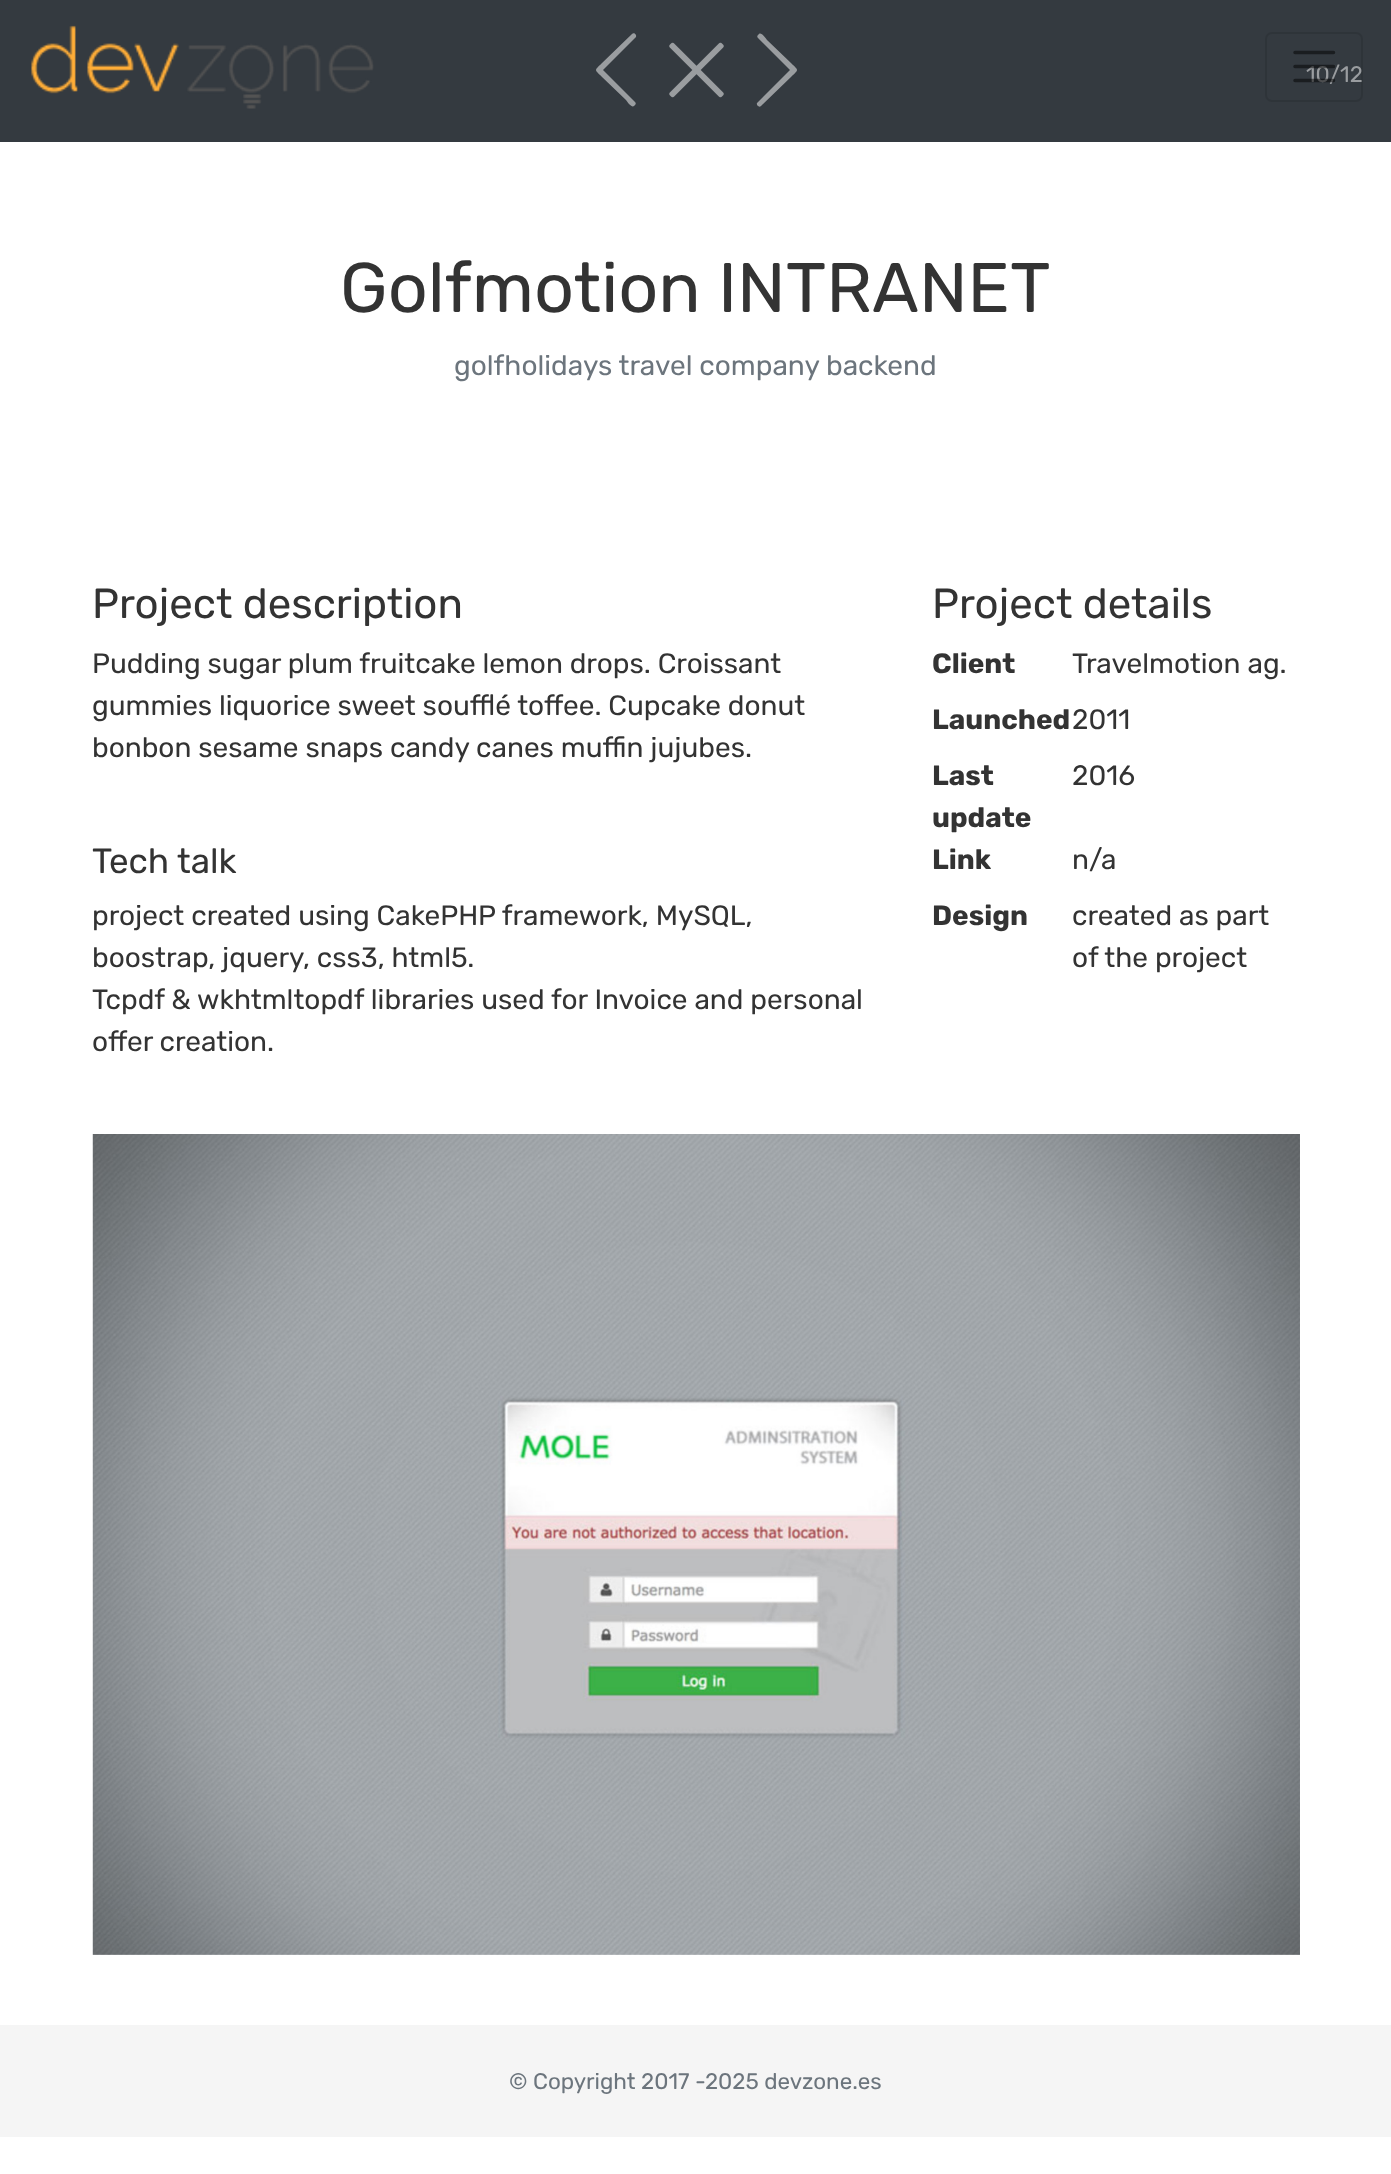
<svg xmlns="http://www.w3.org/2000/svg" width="1391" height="2174">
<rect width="100%" height="100%" fill="#fff"/>
<rect width="1391" height="142" fill="#343a40"/>
<image x="31" y="25" width="343" height="84" href="media/1.png"/>
<text x="1306" y="82" style="font-family:Rubik;font-size:22.4px;fill:#9a9da0">10/12</text>
<rect x="1266" y="33" width="96" height="68" rx="6" fill="none" stroke="#0000001a" stroke-width="2"/>
<path d="M1295 52.5h38.5m-38.5 14h38.5m-38.5 14h38.5" fill="none" stroke="#00000080" stroke-width="3.5" stroke-linecap="round"/>
<path d="M634 106l1-1c1-1 1-2 0-3l-32-32l33-33c1-2-2-5-4-3l-30 29c-8 8-8 6 0 14l24 23c2 3 6 8 8 6z" fill="#9a9da0"/>
<image x="669" y="42" width="55" height="56" href="media/2.png"/>
<path d="M759 34l-1 1c-1 1-1 2 0 3l32 32l-33 33c-1 2 2 5 4 3l30-29c8-8 8-6 0-14l-24-23c-2-3-6-8-8-6z" fill="#9a9da0"/>
<text x="340" y="312" style="font-family:Rubik;font-size:70px;fill:#333">Golfmotion INTRANET</text>
<text x="454" y="375" style="font-family:Rubik;font-size:28px;fill:#6c757d">golfholidays travel company backend</text>
<text x="92" y="618" style="font-family:Rubik;font-size:42px;fill:#333">Project description</text>
<text x="92" y="673" style="font-family:Rubik;font-size:28px;fill:#333">Pudding sugar plum fruitcake lemon drops. Croissant</text>
<text x="92" y="715" style="font-family:Rubik;font-size:28px;fill:#333">gummies liquorice sweet soufflé toffee. Cupcake donut</text>
<text x="92" y="757" style="font-family:Rubik;font-size:28px;fill:#333">bonbon sesame snaps candy canes muffin jujubes.</text>
<text x="92" y="873" style="font-family:Rubik;font-size:35px;fill:#333">Tech talk</text>
<text x="92" y="925" style="font-family:Rubik;font-size:28px;fill:#333">project created using CakePHP framework, MySQL,</text>
<text x="92" y="967" style="font-family:Rubik;font-size:28px;fill:#333">boostrap, jquery, css3, html5.</text>
<text x="92" y="1009" style="font-family:Rubik;font-size:28px;fill:#333">Tcpdf &amp; wkhtmltopdf libraries used for Invoice and personal</text>
<text x="92" y="1051" style="font-family:Rubik;font-size:28px;fill:#333">offer creation.</text>
<text x="932" y="618" style="font-family:Rubik;font-size:42px;fill:#333">Project details</text>
<text x="932" y="673" style="font-family:Rubik;font-size:28px;font-weight:bold;fill:#333">Client</text>
<text x="1072" y="673" style="font-family:Rubik;font-size:28px;fill:#333">Travelmotion ag.</text>
<text x="932" y="729" style="font-family:Rubik;font-size:28px;font-weight:bold;fill:#333">Launched</text>
<text x="1072" y="729" style="font-family:Rubik;font-size:28px;fill:#333">2011</text>
<text x="932" y="785" style="font-family:Rubik;font-size:28px;font-weight:bold;fill:#333">Last</text>
<text x="932" y="827" style="font-family:Rubik;font-size:28px;font-weight:bold;fill:#333">update</text>
<text x="1072" y="785" style="font-family:Rubik;font-size:28px;fill:#333">2016</text>
<text x="932" y="869" style="font-family:Rubik;font-size:28px;font-weight:bold;fill:#333">Link</text>
<text x="1072" y="869" style="font-family:Rubik;font-size:28px;fill:#333">n/a</text>
<text x="932" y="925" style="font-family:Rubik;font-size:28px;font-weight:bold;fill:#333">Design</text>
<text x="1072" y="925" style="font-family:Rubik;font-size:28px;fill:#333">created as part</text>
<text x="1072" y="967" style="font-family:Rubik;font-size:28px;fill:#333">of the project</text>
<image x="92" y="1134" width="1208" height="821" href="media/3.png"/>
<rect y="2025" width="1391" height="112" fill="#f5f5f5"/>
<text x="509" y="2089" style="font-family:Rubik;font-size:22.4px;fill:#6c757d">© Copyright 2017 -2025 devzone.es</text>
</svg>
